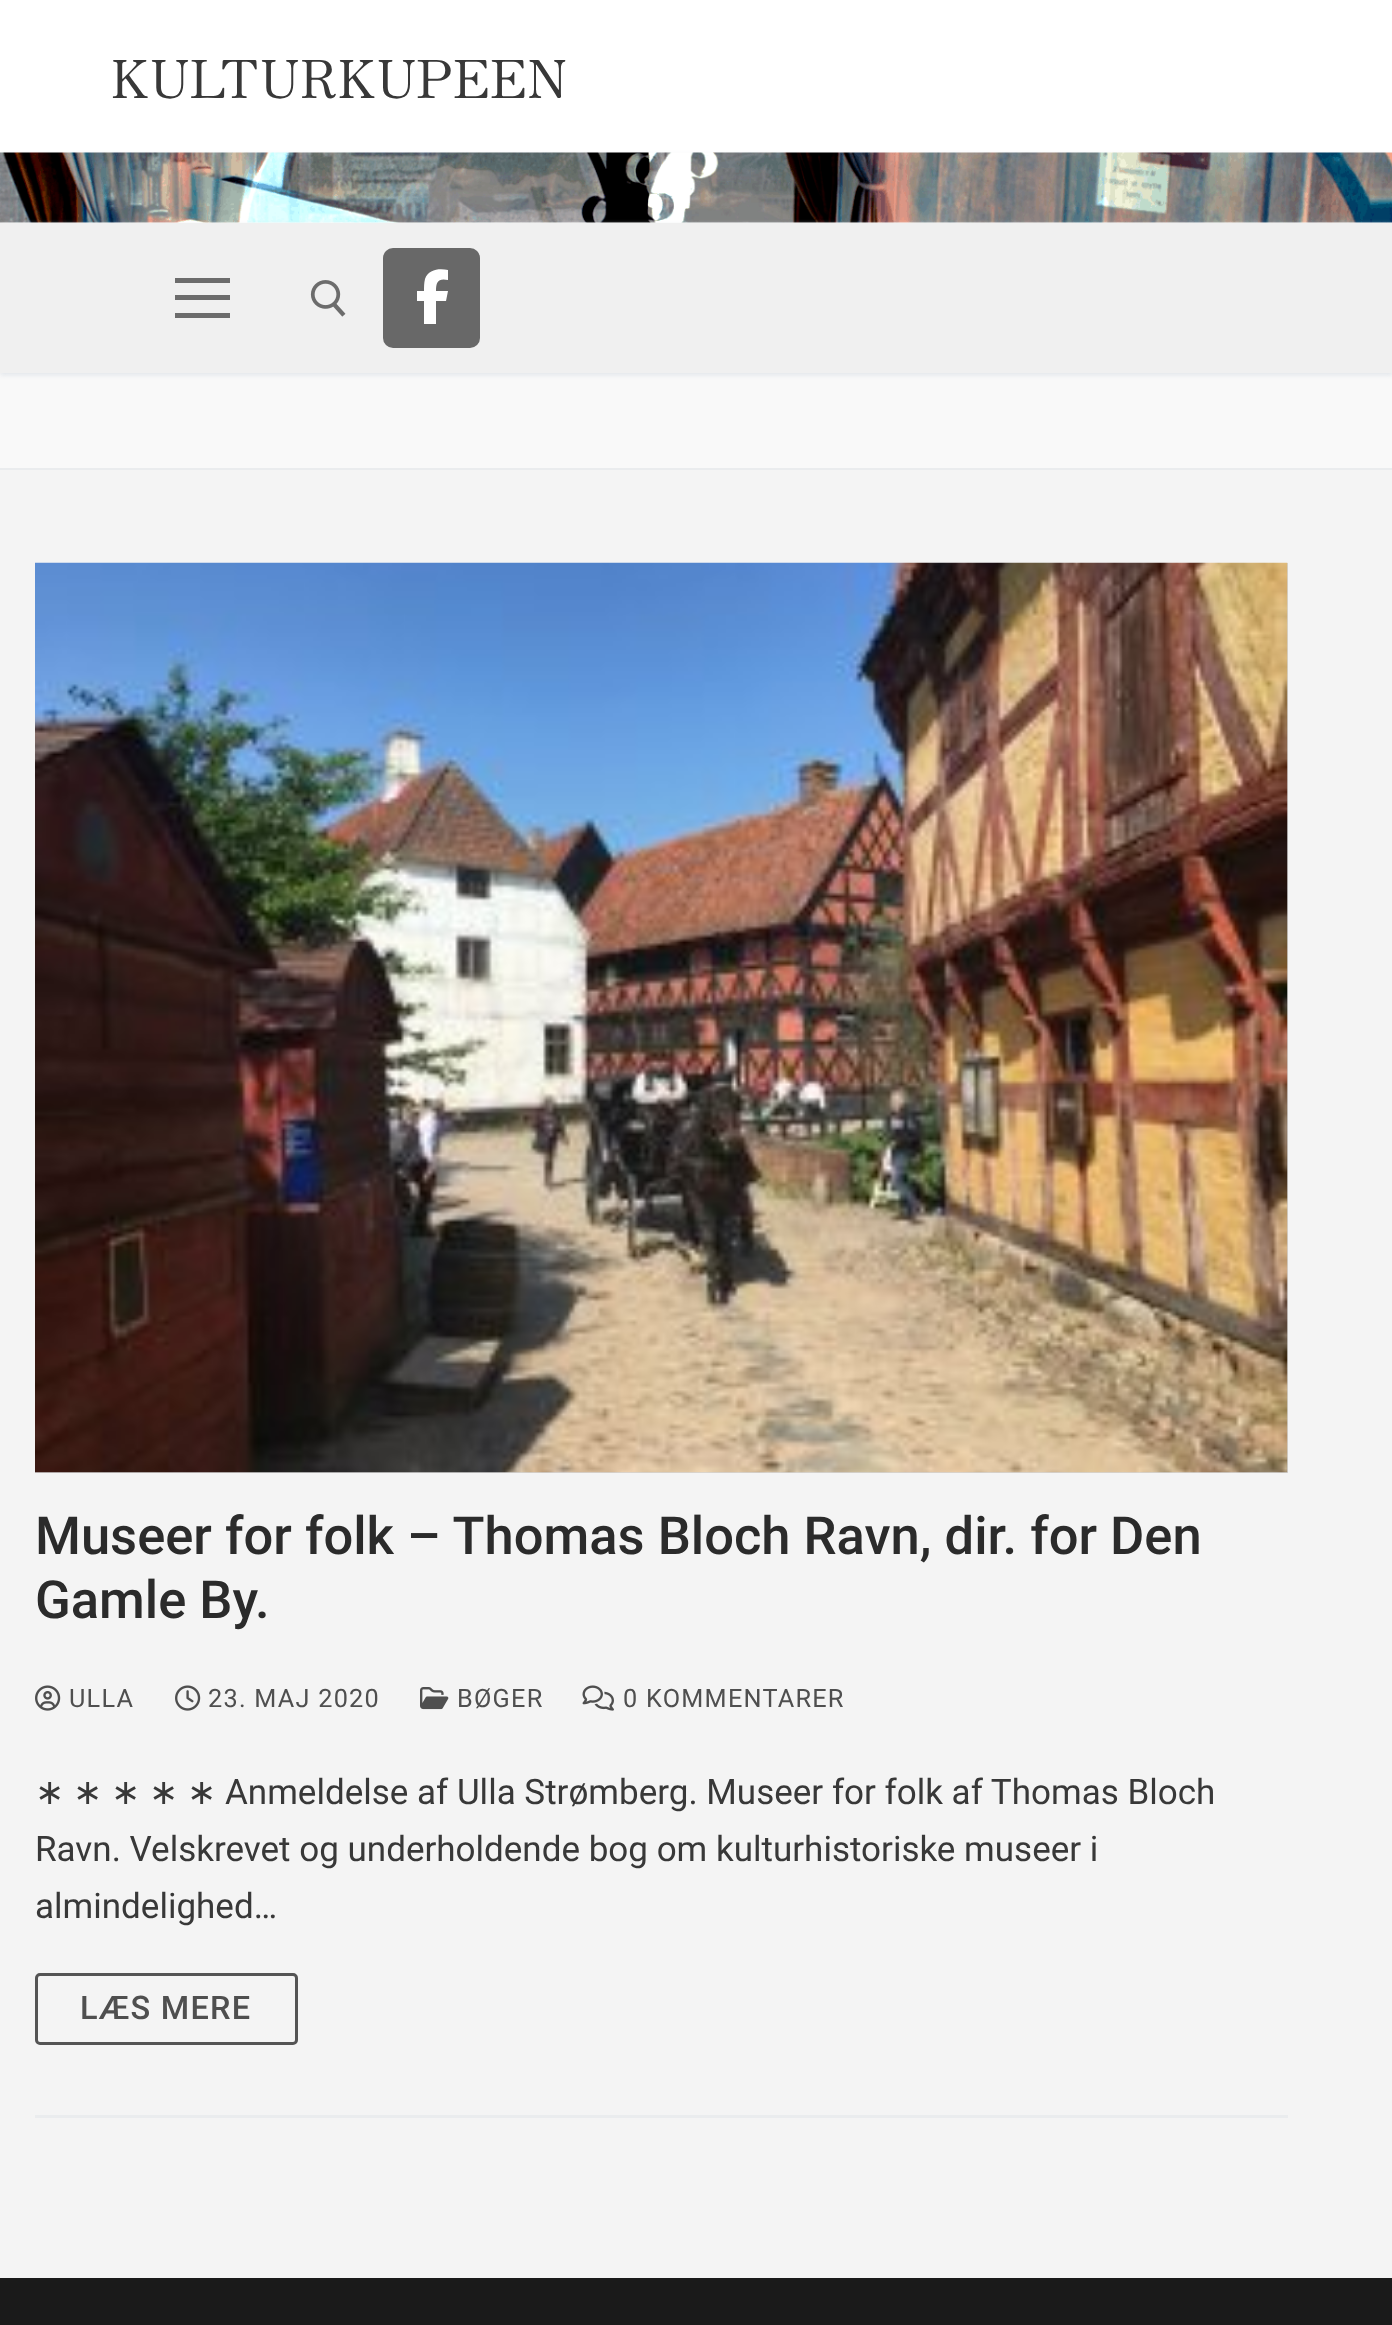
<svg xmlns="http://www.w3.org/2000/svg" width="1392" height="2325">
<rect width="100%" height="100%" fill="#fff"/>
<text x="111" y="98" style="font-family:Zen Old Mincho;font-size:52.5px;letter-spacing:1px;fill:#383838">KULTURKUPEEN</text>
<rect y="155" width="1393" height="70" fill="#e1e5ea" filter="blur(2.5px)"/>
<rect y="222" width="1392" height="1" fill="#fff"/>
<image x="0" y="152" width="1392" height="71" href="media/1.png"/>
<rect y="373" width="1392" height="95" fill="#f9f9f9"/>
<rect y="225" width="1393" height="150" fill="#e1e5ea" filter="blur(2.5px)"/>
<rect y="223" width="1392" height="150" fill="#f0f0f0"/>
<rect x="175" y="295" width="55" height="5" fill="#6c6c6c"/>
<rect x="175" y="278" width="55" height="5" fill="#6c6c6c"/>
<rect x="175" y="313" width="55" height="5" fill="#6c6c6c"/>
<image x="310" y="280" width="36" height="37" href="media/2.png"/>
<rect x="383" y="248" width="97" height="100" rx="10" fill="#686868"/>
<path d="M424 301v23v-23v23h12v-23h10l2-10h-12c0-9 2-13 12-11v-10c-8-2-20-1-23 9c-1 4-1 8-1 12h-7v10z" fill="#fff"/>
<rect y="468" width="1392" height="2" fill="#eaecee"/>
<rect y="470" width="1392" height="1808" fill="#f4f4f4"/>
<rect x="35" y="2115" width="1253" height="3" fill="#eaecee"/>
<rect x="35" y="563" width="1253" height="910" fill="#d5d5d5"/>
<image x="35" y="562" width="1253" height="911" href="media/3.png"/>
<text x="35" y="1554" style="font-family:Roboto;font-size:52.5px;font-weight:500;fill:#2b2b2b">Museer for folk – Thomas Bloch Ravn, dir. for Den</text>
<text x="35" y="1618" style="font-family:Roboto;font-size:52.5px;font-weight:500;fill:#2b2b2b">Gamle By.</text>
<image x="35" y="1685" width="26" height="26" href="media/4.png"/>
<text x="69" y="1707" style="font-family:Roboto;font-size:25.25px;letter-spacing:1.25px;fill:#4f4f4f">ULLA</text>
<image x="175" y="1685" width="26" height="26" href="media/5.png"/>
<text x="208" y="1707" style="font-family:Roboto;font-size:25.25px;letter-spacing:1.25px;fill:#4f4f4f">23. MAJ 2020</text>
<image x="420" y="1687" width="29" height="23" href="media/6.png"/>
<text x="457" y="1707" style="font-family:Roboto;font-size:25.25px;letter-spacing:1.25px;fill:#4f4f4f">BØGER</text>
<image x="582" y="1685" width="32" height="26" href="media/7.png"/>
<text x="623" y="1707" style="font-family:Roboto;font-size:25.25px;letter-spacing:1.25px;fill:#4f4f4f">0 KOMMENTARER</text>
<text x="35" y="1804" style="font-family:DejaVu Sans;font-size:35px;fill:#383838">∗</text>
<text x="73" y="1804" style="font-family:DejaVu Sans;font-size:35px;fill:#383838">∗</text>
<text x="111" y="1804" style="font-family:DejaVu Sans;font-size:35px;fill:#383838">∗</text>
<text x="149" y="1804" style="font-family:DejaVu Sans;font-size:35px;fill:#383838">∗</text>
<text x="187" y="1804" style="font-family:DejaVu Sans;font-size:35px;fill:#383838">∗</text>
<text x="225" y="1804" style="font-family:Roboto;font-size:35px;fill:#383838">Anmeldelse af Ulla Strømberg. Museer for folk af Thomas Bloch</text>
<text x="35" y="1861" style="font-family:Roboto;font-size:35px;fill:#383838">Ravn. Velskrevet og underholdende bog om kulturhistoriske museer i</text>
<text x="35" y="1918" style="font-family:Roboto;font-size:35px;fill:#383838">almindelighed…</text>
<rect x="36.5" y="1974.5" width="260" height="69" rx="3.5" fill="none" stroke="#545454" stroke-width="3"/>
<text x="80" y="2019" style="font-family:Roboto;font-size:32.5px;font-weight:500;letter-spacing:1.25px;fill:#4f4f4f">LÆS MERE</text>
<rect y="2278" width="1392" height="47" fill="#1a1a1a"/>
</svg>
